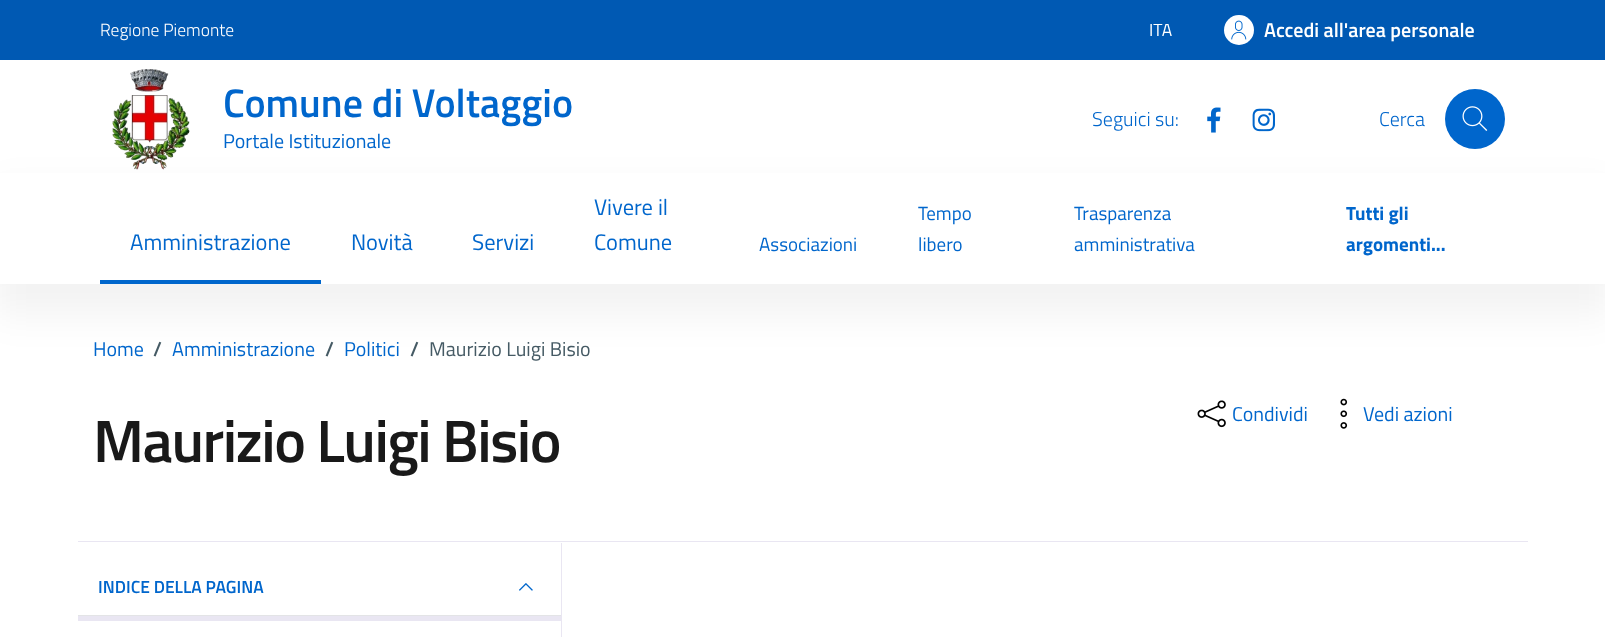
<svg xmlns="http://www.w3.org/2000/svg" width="1605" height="637">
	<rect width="100%" height="100%" fill="#FFFFFF" />
	<rect x="0" y="0" width="1605" height="60" fill="#0059B3" />
	<text x="100" y="36" font-family="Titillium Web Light" font-size="17.5" font-weight="300" fill="#FFFFFF">Regione Piemonte</text>
	<text x="1149" y="36" font-family="Titillium Web" font-size="17.5" fill="#FFFFFF">ITA</text>
	<circle cx="1239" cy="30" r="15" fill="#FFFFFF" />
	<image x="1231" y="20" width="16" height="20" href="assets/img1.png" />
	<text x="1264" y="37" font-family="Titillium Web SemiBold" font-size="20" font-weight="600" fill="#FFFFFF">Accedi all'area personale</text>
	<image x="112" y="69" width="78" height="101" href="assets/img2.png" />
	<text x="223" y="117" font-family="Titillium Web SemiBold" font-size="40" font-weight="600" fill="#0066CC">Comune di Voltaggio</text>
	<text x="223" y="148" font-family="Titillium Web" font-size="20" fill="#0066CC">Portale Istituzionale</text>
	<text x="1092" y="126" font-family="Titillium Web Light" font-size="20" font-weight="300" fill="#0066CC">Seguici su:</text>
	<image x="1207" y="107" width="14" height="26" href="assets/img3.png" />
	<image x="1252" y="108" width="23" height="24" href="assets/img4.png" />
	<text x="1379" y="126" font-family="Titillium Web Light" font-size="20" font-weight="300" fill="#0066CC">Cerca</text>
	<circle cx="1475" cy="119" r="30" fill="#0066CC" />
	<image x="1462" y="106" width="26" height="25" href="assets/img5.png" />
	<rect x="-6" y="189" width="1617" height="126" fill="#000000" fill-opacity="0.05" filter="blur(19px)" />
	<rect x="0" y="173" width="1605" height="111" fill="#FFFFFF" />
	<rect x="100" y="280" width="221" height="4" fill="#0066CC" />
	<g font-family="Titillium Web" font-size="22.5" fill="#0066CC">
		<text x="130" y="250">Amministrazione</text>
		<text x="351" y="250">Novità</text>
		<text x="472" y="250">Servizi</text>
		<text x="594" y="215">Vivere il</text>
		<text x="594" y="250">Comune</text>
	</g>
	<g font-family="Titillium Web" font-size="19" fill="#0066CC">
		<text x="759" y="251">Associazioni</text>
		<text x="918" y="220">Tempo</text>
		<text x="918" y="251">libero</text>
		<text x="1074" y="220">Trasparenza</text>
		<text x="1074" y="251">amministrativa</text>
	</g>
	<g font-family="Titillium Web" font-size="19" font-weight="700" fill="#0066CC">
		<text x="1346" y="220">Tutti gli</text>
		<text x="1346" y="251">argomenti...</text>
	</g>
	<text x="93" y="356" font-family="Titillium Web" font-size="20" fill="#0066CC">Home</text>
	<text x="153" y="356" font-family="Titillium Web SemiBold" font-size="20" font-weight="600" fill="#455A64">/</text>
	<text x="172" y="356" font-family="Titillium Web" font-size="20" fill="#0066CC">Amministrazione</text>
	<text x="325" y="356" font-family="Titillium Web SemiBold" font-size="20" font-weight="600" fill="#455A64">/</text>
	<text x="344" y="356" font-family="Titillium Web" font-size="20" fill="#0066CC">Politici</text>
	<text x="410" y="356" font-family="Titillium Web SemiBold" font-size="20" font-weight="600" fill="#455A64">/</text>
	<text x="429" y="356" font-family="Titillium Web" font-size="20" fill="#455A64">Maurizio Luigi Bisio</text>
	<image x="1197" y="400" width="29" height="28" href="assets/img6.png" />
	<text x="1232" y="421" font-family="Titillium Web" font-size="20" fill="#0066CC">Condividi</text>
	<image x="1340" y="398" width="8" height="31" href="assets/img7.png" />
	<text x="1363" y="421" font-family="Titillium Web" font-size="20" fill="#0066CC">Vedi azioni</text>
	<text x="93" y="462" font-family="Titillium Web SemiBold" font-size="60" font-weight="600" letter-spacing="-1.5" fill="#191919">Maurizio Luigi Bisio</text>
	<rect x="78" y="541" width="1450" height="1" fill="#E9E6F2" />
	<rect x="78" y="615" width="483" height="1" fill="#E3E4E6" />
	<text x="98" y="593" font-family="Titillium Web SemiBold" font-size="17.5" font-weight="600" fill="#0066CC">INDICE DELLA PAGINA</text>
	<image x="519" y="583" width="14" height="8" href="assets/img8.png" />
	<rect x="78" y="616" width="483" height="5" fill="#E9E6F2" />
	<rect x="561" y="543" width="1" height="94" fill="#E9E6F2" />
</svg>
